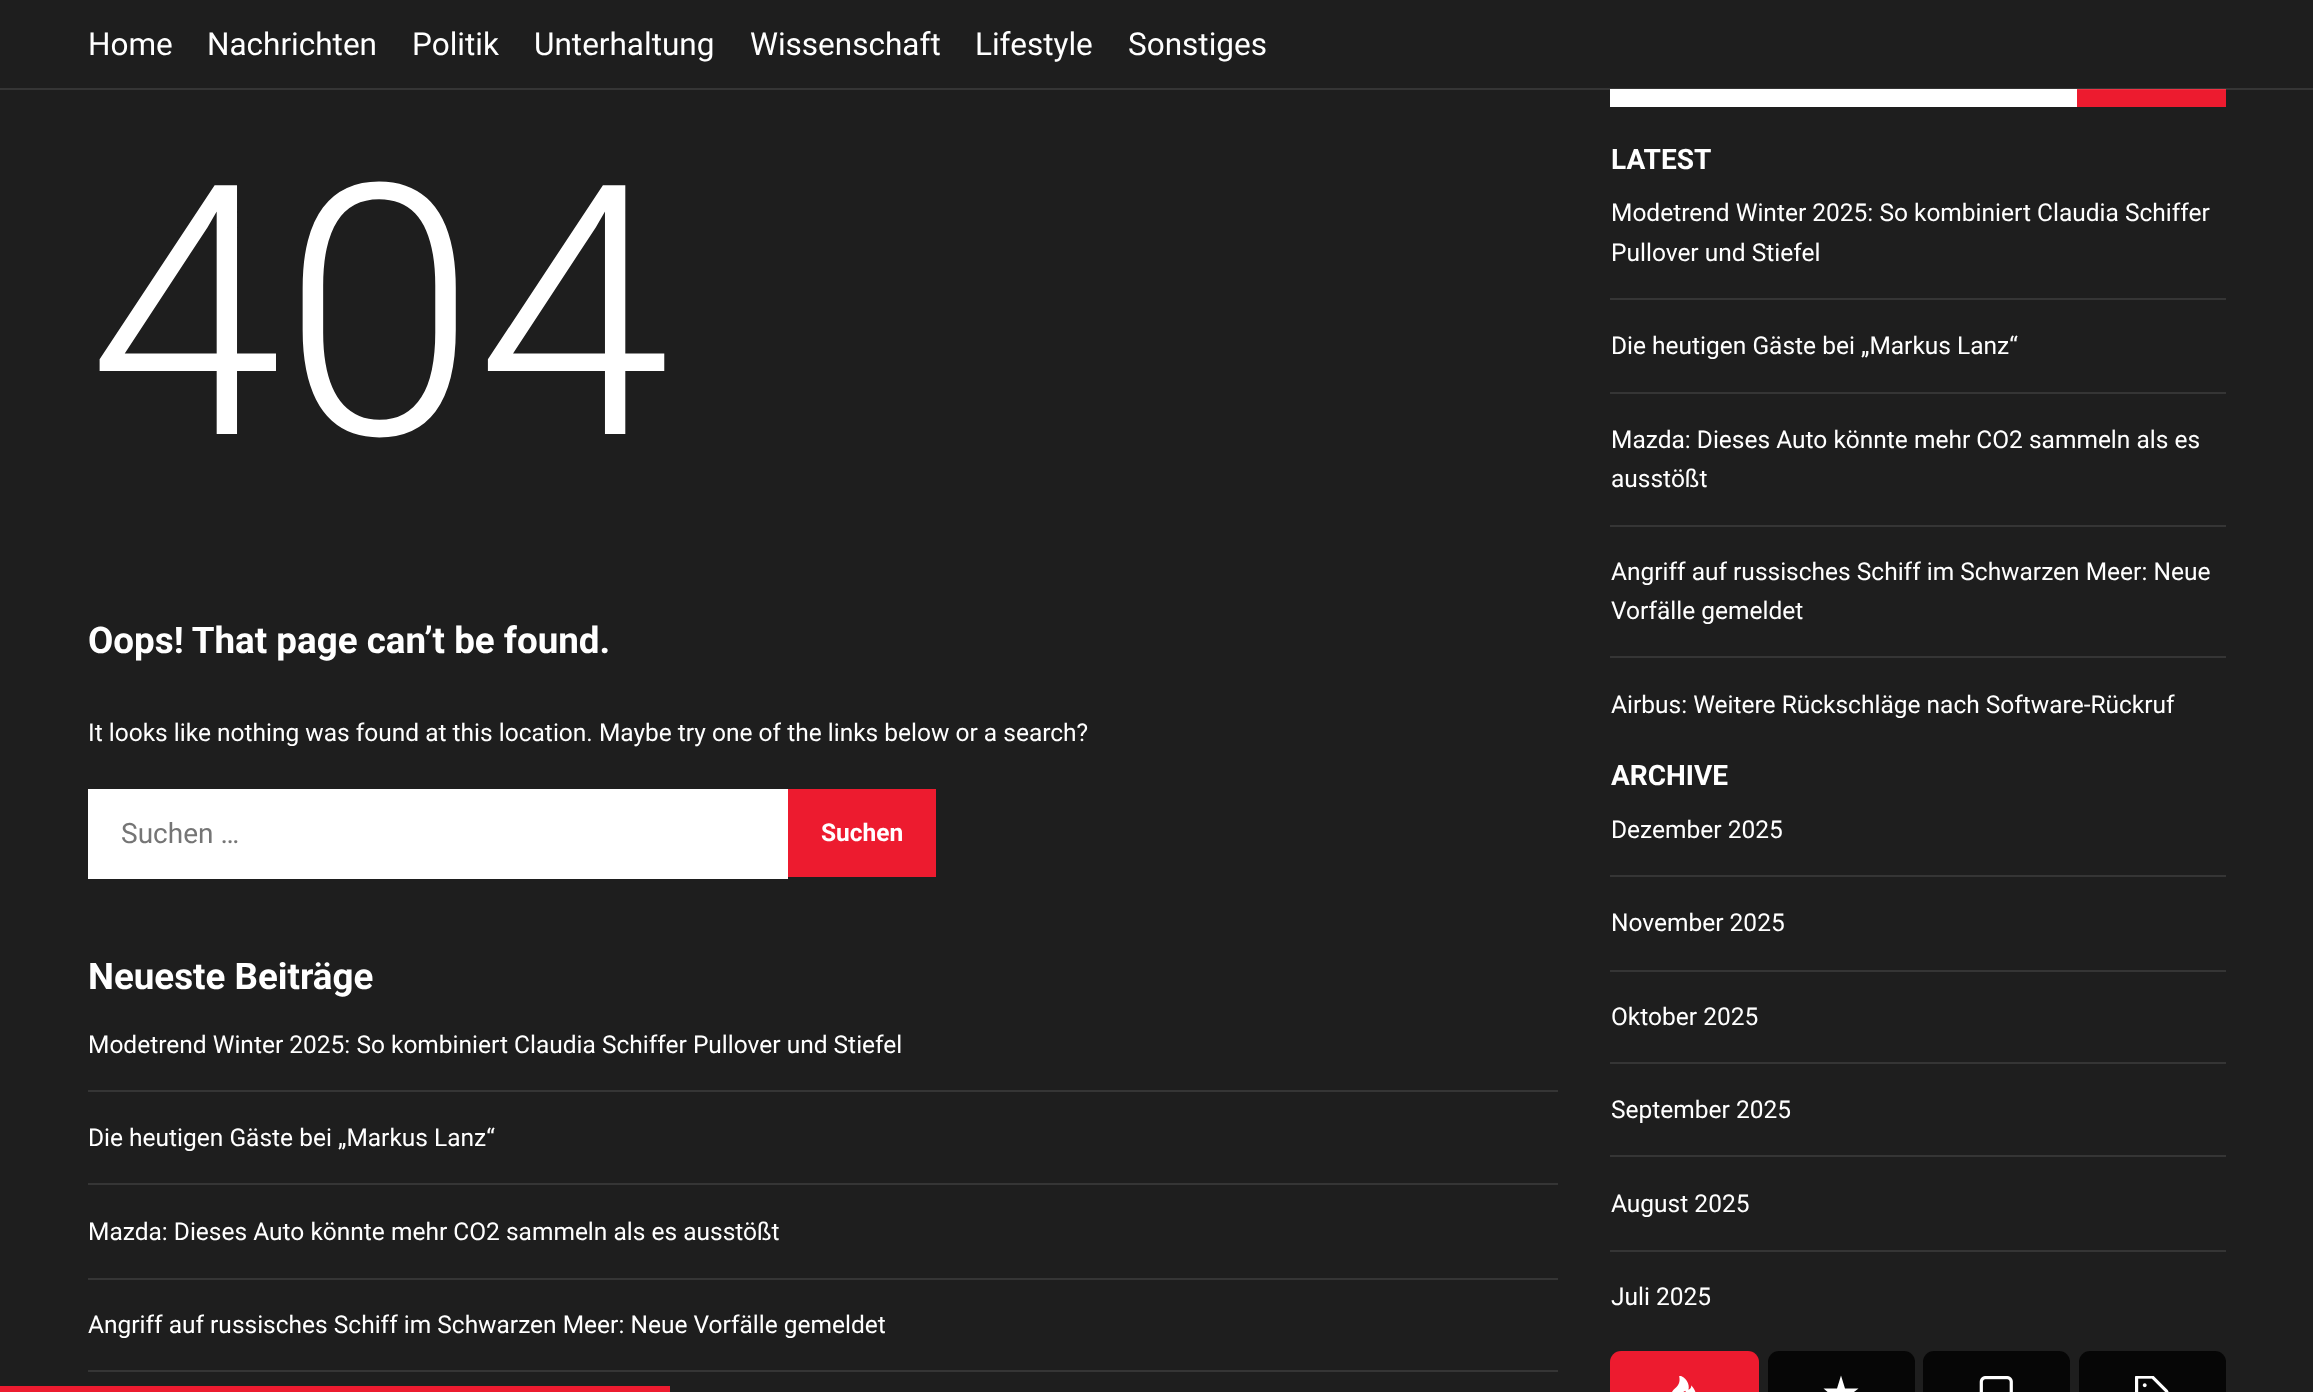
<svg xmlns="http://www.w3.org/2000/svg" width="2313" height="1392">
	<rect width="100%" height="100%" fill="#1E1E1E" />
	<rect x="0" y="88" width="2313" height="2" fill="#353535" />
	<g font-family="Roboto" font-size="31.5" fill="#FFFFFF">
		<text x="88" y="55">Home</text>
		<text x="207" y="55">Nachrichten</text>
		<text x="412" y="55">Politik</text>
		<text x="534" y="55">Unterhaltung</text>
		<text x="750" y="55">Wissenschaft</text>
		<text x="975" y="55">Lifestyle</text>
		<text x="1128" y="55">Sonstiges</text>
	</g>
	<text x="88" y="434" font-family="Roboto" font-size="350" font-weight="300" fill="#FFFFFF">404</text>
	<text x="88" y="653" font-family="Roboto" font-size="36.75" font-weight="700" fill="#FFFFFF">Oops! That page can’t be found.</text>
	<text x="88" y="741" font-family="Roboto" font-size="24.5" fill="#FFFFFF">It looks like nothing was found at this location. Maybe try one of the links below or a search?</text>
	<rect x="88" y="789" width="700" height="90" fill="#FFFFFF" />
	<text x="121" y="843" font-family="Roboto" font-size="28" fill="#757575">Suchen …</text>
	<rect x="788" y="789" width="148" height="88" fill="#ED1B2F" />
	<text x="821" y="841" font-family="Roboto" font-size="24.5" font-weight="700" fill="#FFFFFF">Suchen</text>
	<text x="88" y="989" font-family="Roboto" font-size="36.75" font-weight="700" fill="#FFFFFF">Neueste Beiträge</text>
	<rect x="88" y="1090" width="1470" height="2" fill="#353535" />
	<text x="88" y="1053" font-family="Roboto" font-size="24.5" fill="#FFFFFF">Modetrend Winter 2025: So kombiniert Claudia Schiffer Pullover und Stiefel</text>
	<rect x="88" y="1183" width="1470" height="2" fill="#353535" />
	<text x="88" y="1146" font-family="Roboto" font-size="24.5" fill="#FFFFFF">Die heutigen Gäste bei „Markus Lanz“</text>
	<rect x="88" y="1278" width="1470" height="2" fill="#353535" />
	<text x="88" y="1240" font-family="Roboto" font-size="24.5" fill="#FFFFFF">Mazda: Dieses Auto könnte mehr CO2 sammeln als es ausstößt</text>
	<rect x="88" y="1370" width="1470" height="2" fill="#353535" />
	<text x="88" y="1333" font-family="Roboto" font-size="24.5" fill="#FFFFFF">Angriff auf russisches Schiff im Schwarzen Meer: Neue Vorfälle gemeldet</text>
	<rect x="1610" y="89" width="467" height="18" fill="#FFFFFF" />
	<rect x="2077" y="90" width="149" height="17" fill="#ED1B2F" />
	<rect x="2077" y="89" width="149" height="1" fill="#EF3244" />
	<text x="1611" y="169" font-family="Roboto" font-size="28" font-weight="700" fill="#FFFFFF">LATEST</text>
	<rect x="1610" y="298" width="616" height="2" fill="#353535" />
	<g font-family="Roboto" font-size="24.5" fill="#FFFFFF">
		<text x="1611" y="221">Modetrend Winter 2025: So kombiniert Claudia Schiffer</text>
		<text x="1611" y="261">Pullover und Stiefel</text>
	</g>
	<rect x="1610" y="392" width="616" height="2" fill="#353535" />
	<text x="1611" y="354" font-family="Roboto" font-size="24.5" fill="#FFFFFF">Die heutigen Gäste bei „Markus Lanz“</text>
	<rect x="1610" y="525" width="616" height="2" fill="#353535" />
	<g font-family="Roboto" font-size="24.5" fill="#FFFFFF">
		<text x="1611" y="448">Mazda: Dieses Auto könnte mehr CO2 sammeln als es</text>
		<text x="1611" y="487">ausstößt</text>
	</g>
	<rect x="1610" y="656" width="616" height="2" fill="#353535" />
	<g font-family="Roboto" font-size="24.5" fill="#FFFFFF">
		<text x="1611" y="580">Angriff auf russisches Schiff im Schwarzen Meer: Neue</text>
		<text x="1611" y="619">Vorfälle gemeldet</text>
		<text x="1611" y="713">Airbus: Weitere Rückschläge nach Software-Rückruf</text>
	</g>
	<text x="1611" y="785" font-family="Roboto" font-size="28" font-weight="700" fill="#FFFFFF">ARCHIVE</text>
	<rect x="1610" y="875" width="616" height="2" fill="#353535" />
	<text x="1611" y="838" font-family="Roboto" font-size="24.5" fill="#FFFFFF">Dezember 2025</text>
	<rect x="1610" y="970" width="616" height="2" fill="#353535" />
	<text x="1611" y="931" font-family="Roboto" font-size="24.5" fill="#FFFFFF">November 2025</text>
	<rect x="1610" y="1062" width="616" height="2" fill="#353535" />
	<text x="1611" y="1025" font-family="Roboto" font-size="24.5" fill="#FFFFFF">Oktober 2025</text>
	<rect x="1610" y="1155" width="616" height="2" fill="#353535" />
	<text x="1611" y="1118" font-family="Roboto" font-size="24.5" fill="#FFFFFF">September 2025</text>
	<rect x="1610" y="1250" width="616" height="2" fill="#353535" />
	<g font-family="Roboto" font-size="24.5" fill="#FFFFFF">
		<text x="1611" y="1212">August 2025</text>
		<text x="1611" y="1305">Juli 2025</text>
	</g>
	<rect x="1610" y="1351" width="149" height="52" rx="11" fill="#ED1B2F" />
	<image x="1672" y="1376" width="24" height="16" href="assets/img1.png" />
	<rect x="1768" y="1351" width="147" height="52" rx="11" fill="#060606" />
	<path d="M1858.5 1388.5L1830 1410.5L1834 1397.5L1823.5 1388.5H1837L1841 1375.5L1845 1388.5ZM1852.5 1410.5L1843 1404L1848.5 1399.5Z" fill="#FFFFFF" />
	<rect x="1923" y="1351" width="147" height="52" rx="11" fill="#060606" />
	<image x="1979" y="1376" width="34" height="16" href="assets/img2.png" />
	<rect x="2079" y="1351" width="147" height="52" rx="11" fill="#060606" />
	<image x="2135" y="1376" width="34" height="16" href="assets/img3.png" />
	<rect x="0" y="1386" width="670" height="6" fill="#ED1B2F" />
</svg>
